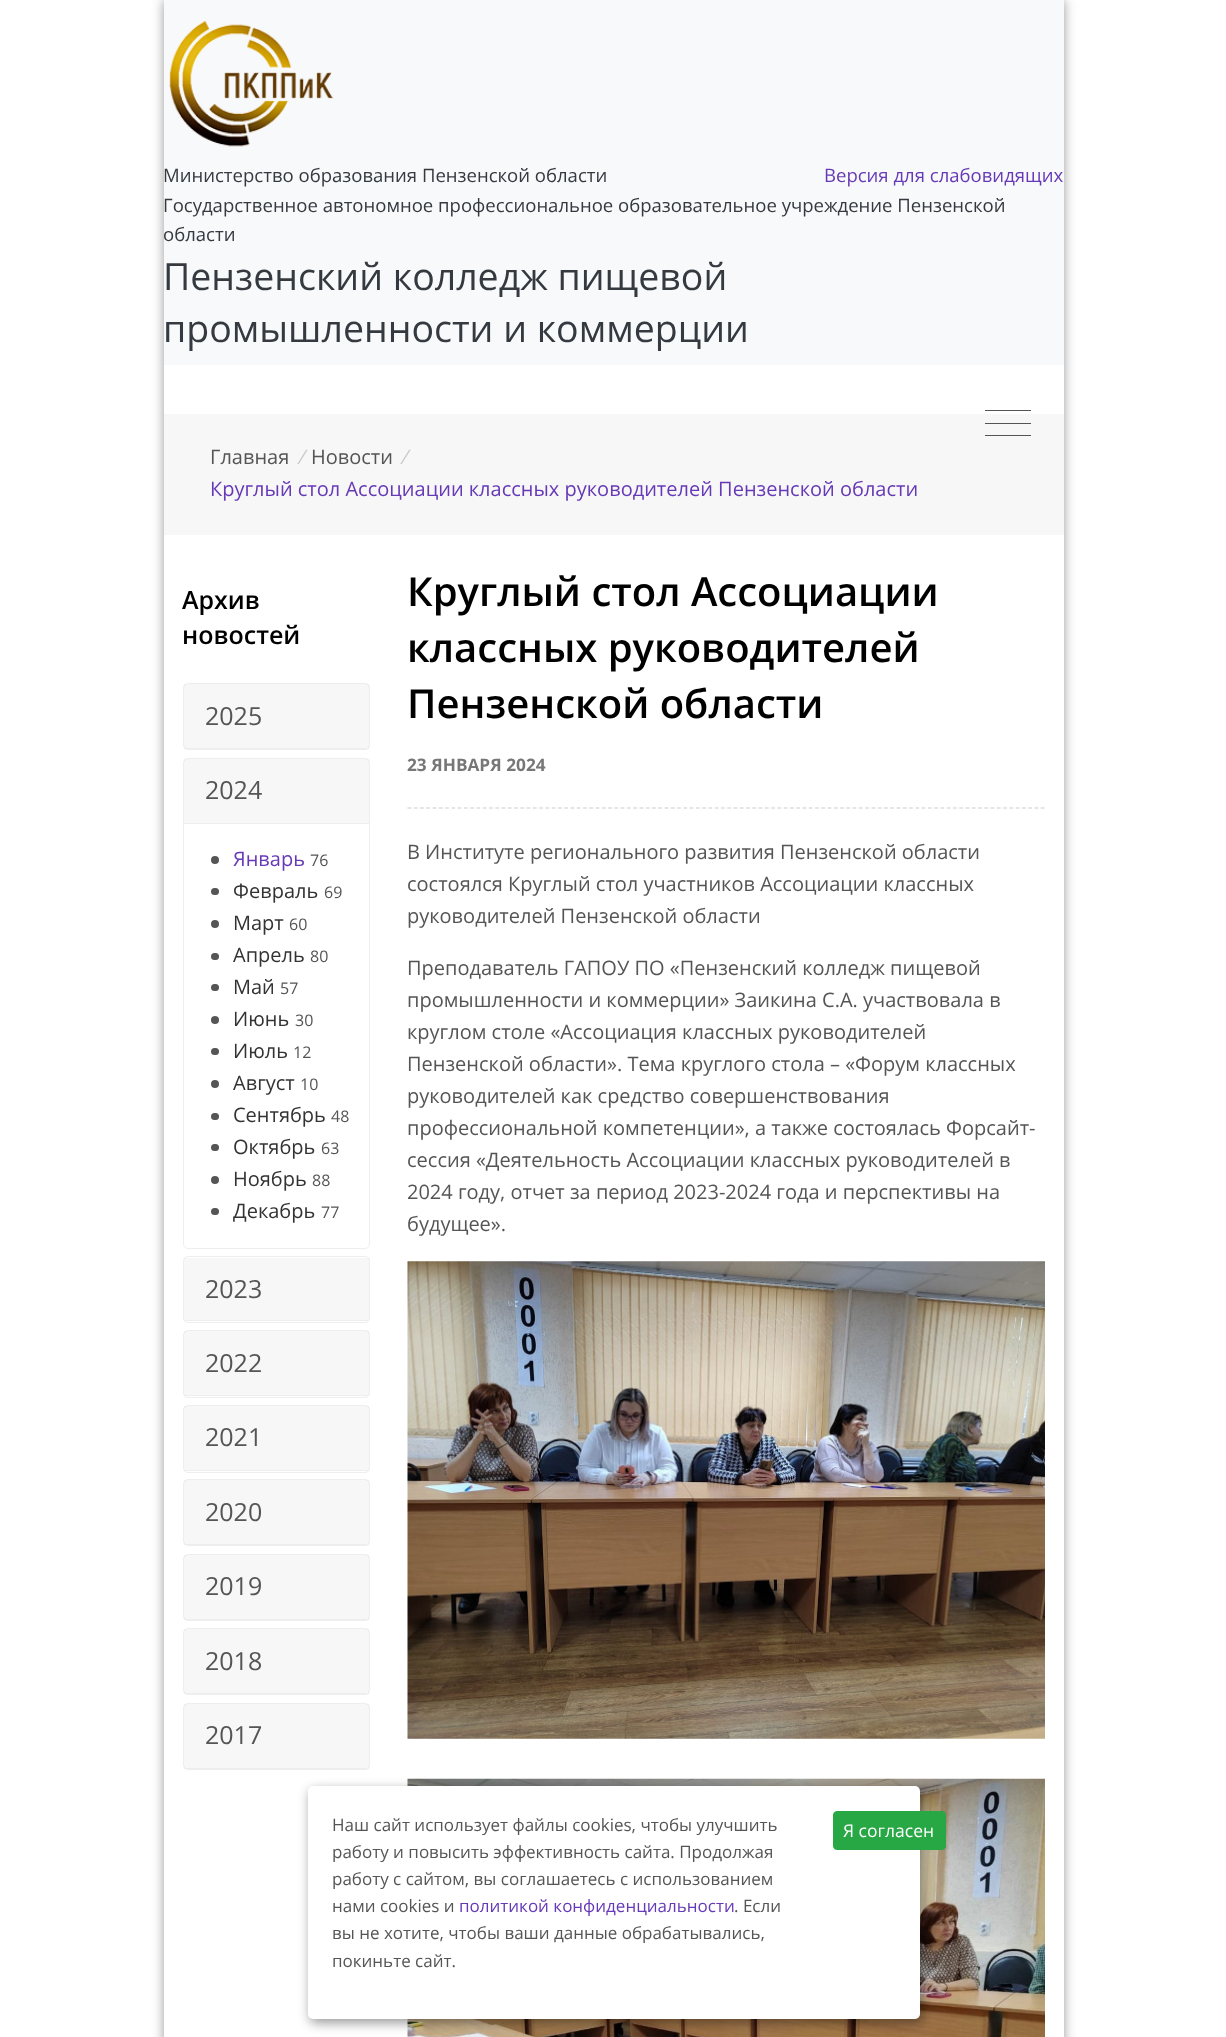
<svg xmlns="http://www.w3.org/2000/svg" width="1226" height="2037">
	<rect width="100%" height="100%" fill="#FFFFFF" />
	<rect x="164" y="0" width="900" height="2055" fill="#999999" filter="blur(6px)" />
	<rect x="164" y="365" width="900" height="1672" fill="#FFFFFF" />
	<rect x="164" y="0" width="900" height="365" fill="#F8F9FA" />
	<image x="169" y="20" width="165" height="127" href="assets/img1.png" />
	<text x="163" y="182" font-family="Open Sans" font-size="18.55" fill="#343A40">Министерство образования Пензенской области</text>
	<text x="824" y="182" font-family="Open Sans" font-size="18.55" fill="#6639B6">Версия для слабовидящих</text>
	<g font-family="Open Sans" font-size="18.55" fill="#343A40">
		<text x="163" y="212">Государственное автономное профессиональное образовательное учреждение Пензенской</text>
		<text x="163" y="241">области</text>
	</g>
	<g font-family="Open Sans" font-size="37.5" fill="#343A40">
		<text x="163" y="290">Пензенский колледж пищевой</text>
		<text x="163" y="342">промышленности и коммерции</text>
	</g>
	<rect x="985" y="410" width="46" height="1" fill="#555555" />
	<rect x="164" y="414" width="900" height="121" fill="#F7F7F7" />
	<rect x="985" y="423" width="46" height="1" fill="#555555" />
	<rect x="985" y="435" width="46" height="1" fill="#555555" />
	<text x="210" y="464" font-family="Open Sans" font-size="20" fill="#555555">Главная</text>
	<text x="297" y="464" font-family="Open Sans" font-size="20" font-style="italic" fill="#CCCCCC">/</text>
	<text x="311" y="464" font-family="Open Sans" font-size="20" fill="#555555">Новости</text>
	<text x="400" y="464" font-family="Open Sans" font-size="20" font-style="italic" fill="#CCCCCC">/</text>
	<text x="210" y="496" font-family="Open Sans" font-size="20" fill="#6639B6">Круглый стол Ассоциации классных руководителей Пензенской области</text>
	<g font-family="Open Sans" font-size="25" font-weight="600" fill="#000000">
		<text x="182" y="609">Архив</text>
		<text x="182" y="644">новостей</text>
	</g>
	<rect x="183.5" y="683.5" width="186" height="66" rx="4.5" fill="none" stroke="#EEEEEE" />
	<rect x="184" y="684" width="185" height="64" fill="#000000" fill-opacity="0.03" />
	<rect x="184" y="748" width="185" height="1" fill="#EEEEEE" />
	<text x="205" y="725" font-family="Open Sans" font-size="25" fill="#555555">2025</text>
	<rect x="183.5" y="758.5" width="186" height="490" rx="4.5" fill="none" stroke="#EEEEEE" />
	<rect x="184" y="759" width="185" height="64" fill="#000000" fill-opacity="0.03" />
	<rect x="184" y="823" width="185" height="1" fill="#EEEEEE" />
	<text x="205" y="799" font-family="Open Sans" font-size="25" fill="#555555">2024</text>
	<circle cx="215" cy="860" r="4" fill="#555555" />
	<text x="233" y="866" font-family="Open Sans" font-size="20" fill="#6639B6">Январь</text>
	<text x="310" y="866" font-family="Open Sans" font-size="16" fill="#555555">76</text>
	<rect x="211" y="888" width="8" height="7" rx="3.5" fill="#555555" />
	<text x="233" y="898" font-family="Open Sans" font-size="20" fill="#333333">Февраль</text>
	<text x="324" y="898" font-family="Open Sans" font-size="16" fill="#555555">69</text>
	<circle cx="215" cy="924" r="4" fill="#555555" />
	<text x="233" y="930" font-family="Open Sans" font-size="20" fill="#333333">Март</text>
	<text x="289" y="930" font-family="Open Sans" font-size="16" fill="#555555">60</text>
	<rect x="211" y="953" width="8" height="7" rx="3.5" fill="#555555" />
	<text x="233" y="962" font-family="Open Sans" font-size="20" fill="#333333">Апрель</text>
	<text x="310" y="962" font-family="Open Sans" font-size="16" fill="#555555">80</text>
	<rect x="211" y="984" width="8" height="7" rx="3.5" fill="#555555" />
	<text x="233" y="994" font-family="Open Sans" font-size="20" fill="#333333">Май</text>
	<text x="280" y="994" font-family="Open Sans" font-size="16" fill="#555555">57</text>
	<circle cx="215" cy="1020" r="4" fill="#555555" />
	<text x="233" y="1026" font-family="Open Sans" font-size="20" fill="#333333">Июнь</text>
	<text x="295" y="1026" font-family="Open Sans" font-size="16" fill="#555555">30</text>
	<rect x="211" y="1048" width="8" height="7" rx="3.5" fill="#555555" />
	<text x="233" y="1058" font-family="Open Sans" font-size="20" fill="#333333">Июль</text>
	<text x="293" y="1058" font-family="Open Sans" font-size="16" fill="#555555">12</text>
	<circle cx="215" cy="1084" r="4" fill="#555555" />
	<text x="233" y="1090" font-family="Open Sans" font-size="20" fill="#333333">Август</text>
	<text x="300" y="1090" font-family="Open Sans" font-size="16" fill="#555555">10</text>
	<rect x="211" y="1113" width="8" height="7" rx="3.5" fill="#555555" />
	<text x="233" y="1122" font-family="Open Sans" font-size="20" fill="#333333">Сентябрь</text>
	<text x="331" y="1122" font-family="Open Sans" font-size="16" fill="#555555">48</text>
	<rect x="211" y="1144" width="8" height="7" rx="3.5" fill="#555555" />
	<text x="233" y="1154" font-family="Open Sans" font-size="20" fill="#333333">Октябрь</text>
	<text x="321" y="1154" font-family="Open Sans" font-size="16" fill="#555555">63</text>
	<circle cx="215" cy="1180" r="4" fill="#555555" />
	<text x="233" y="1186" font-family="Open Sans" font-size="20" fill="#333333">Ноябрь</text>
	<text x="312" y="1186" font-family="Open Sans" font-size="16" fill="#555555">88</text>
	<rect x="211" y="1208" width="8" height="7" rx="3.5" fill="#555555" />
	<text x="233" y="1218" font-family="Open Sans" font-size="20" fill="#333333">Декабрь</text>
	<text x="321" y="1218" font-family="Open Sans" font-size="16" fill="#555555">77</text>
	<rect x="183.5" y="1256.5" width="186" height="66" rx="4.5" fill="none" stroke="#EEEEEE" />
	<rect x="184" y="1258" width="185" height="62" fill="#000000" fill-opacity="0.03" />
	<rect x="184" y="1320" width="185" height="1" fill="#EEEEEE" />
	<text x="205" y="1298" font-family="Open Sans" font-size="25" fill="#555555">2023</text>
	<rect x="183.5" y="1330.5" width="186" height="67" rx="4.5" fill="none" stroke="#EEEEEE" />
	<rect x="184" y="1331" width="185" height="64" fill="#000000" fill-opacity="0.03" />
	<rect x="184" y="1395" width="185" height="1" fill="#EEEEEE" />
	<text x="205" y="1372" font-family="Open Sans" font-size="25" fill="#555555">2022</text>
	<rect x="183.5" y="1405.5" width="186" height="67" rx="4.5" fill="none" stroke="#EEEEEE" />
	<rect x="184" y="1406" width="185" height="64" fill="#000000" fill-opacity="0.03" />
	<rect x="184" y="1470" width="185" height="1" fill="#EEEEEE" />
	<text x="205" y="1446" font-family="Open Sans" font-size="25" fill="#555555">2021</text>
	<rect x="183.5" y="1479.5" width="186" height="66" rx="4.5" fill="none" stroke="#EEEEEE" />
	<rect x="184" y="1480" width="185" height="64" fill="#000000" fill-opacity="0.03" />
	<rect x="184" y="1544" width="185" height="1" fill="#EEEEEE" />
	<text x="205" y="1521" font-family="Open Sans" font-size="25" fill="#555555">2020</text>
	<rect x="183.5" y="1554.5" width="186" height="66" rx="4.5" fill="none" stroke="#EEEEEE" />
	<rect x="184" y="1555" width="185" height="64" fill="#000000" fill-opacity="0.03" />
	<rect x="184" y="1619" width="185" height="1" fill="#EEEEEE" />
	<text x="205" y="1595" font-family="Open Sans" font-size="25" fill="#555555">2019</text>
	<rect x="183.5" y="1628.5" width="186" height="66" rx="4.5" fill="none" stroke="#EEEEEE" />
	<rect x="184" y="1629" width="185" height="64" fill="#000000" fill-opacity="0.03" />
	<rect x="184" y="1693" width="185" height="1" fill="#EEEEEE" />
	<text x="205" y="1670" font-family="Open Sans" font-size="25" fill="#555555">2018</text>
	<rect x="183.5" y="1703.5" width="186" height="66" rx="4.5" fill="none" stroke="#EEEEEE" />
	<rect x="184" y="1704" width="185" height="64" fill="#000000" fill-opacity="0.03" />
	<rect x="184" y="1768" width="185" height="1" fill="#EEEEEE" />
	<text x="205" y="1744" font-family="Open Sans" font-size="25" fill="#555555">2017</text>
	<g font-family="Open Sans" font-size="40" font-weight="600" fill="#000000">
		<text x="407" y="606">Круглый стол Ассоциации</text>
		<text x="407" y="662">классных руководителей</text>
		<text x="407" y="718">Пензенской области</text>
	</g>
	<text x="407" y="771" font-family="Open Sans" font-size="17.25" font-weight="700" fill="#777777">23 ЯНВАРЯ 2024</text>
	<path d="M407.5 808H1045" fill="none" stroke="#CCCCCC" stroke-width="1.2" stroke-dasharray="3.75 2.52" />
	<g font-family="Open Sans" font-size="20" fill="#555555">
		<text x="407" y="859">В Институте регионального развития Пензенской области</text>
		<text x="407" y="891">состоялся Круглый стол участников Ассоциации классных</text>
		<text x="407" y="923">руководителей Пензенской области</text>
		<text x="407" y="975">Преподаватель ГАПОУ ПО «Пензенский колледж пищевой</text>
		<text x="407" y="1007">промышленности и коммерции» Заикина С.А. участвовала в</text>
		<text x="407" y="1039">круглом столе «Ассоциация классных руководителей</text>
		<text x="407" y="1071">Пензенской области». Тема круглого стола – «Форум классных</text>
		<text x="407" y="1103">руководителей как средство совершенствования</text>
		<text x="407" y="1135">профессиональной компетенции», а также состоялась Форсайт-</text>
		<text x="407" y="1167">сессия «Деятельность Ассоциации классных руководителей в</text>
		<text x="407" y="1199">2024 году, отчет за период 2023-2024 года и перспективы на</text>
		<text x="407" y="1231">будущее».</text>
	</g>
	<image x="407" y="1261" width="638" height="478" href="assets/img2.png" />
	<image x="407" y="1778" width="638" height="259" href="assets/img3.png" />
	<rect x="310" y="1790" width="613" height="233" rx="5" fill="#000000" fill-opacity="0.4" filter="blur(6px)" />
	<rect x="308" y="1786" width="612" height="233" rx="5" fill="#FFFFFF" />
	<g font-family="Open Sans" font-size="17" fill="#555555">
		<text x="332" y="1831">Наш сайт использует файлы cookies, чтобы улучшить</text>
		<text x="332" y="1858">работу и повысить эффективность сайта. Продолжая</text>
		<text x="332" y="1885">работу с сайтом, вы соглашаетесь с использованием</text>
		<text x="332" y="1912">нами cookies и</text>
	</g>
	<text x="459" y="1912" font-family="Open Sans" font-size="17" fill="#6639B6">политикой конфиденциальности</text>
	<g font-family="Open Sans" font-size="17" fill="#555555">
		<text x="734" y="1912">. Если</text>
		<text x="332" y="1939">вы не хотите, чтобы ваши данные обрабатывались,</text>
		<text x="332" y="1967">покиньте сайт.</text>
	</g>
	<rect x="833.5" y="1811.5" width="112" height="38" rx="3.5" fill="#28A745" stroke="#28A745" />
	<text x="843" y="1837" font-family="Open Sans" font-size="17.5" fill="#FFFFFF">Я согласен</text>
</svg>
